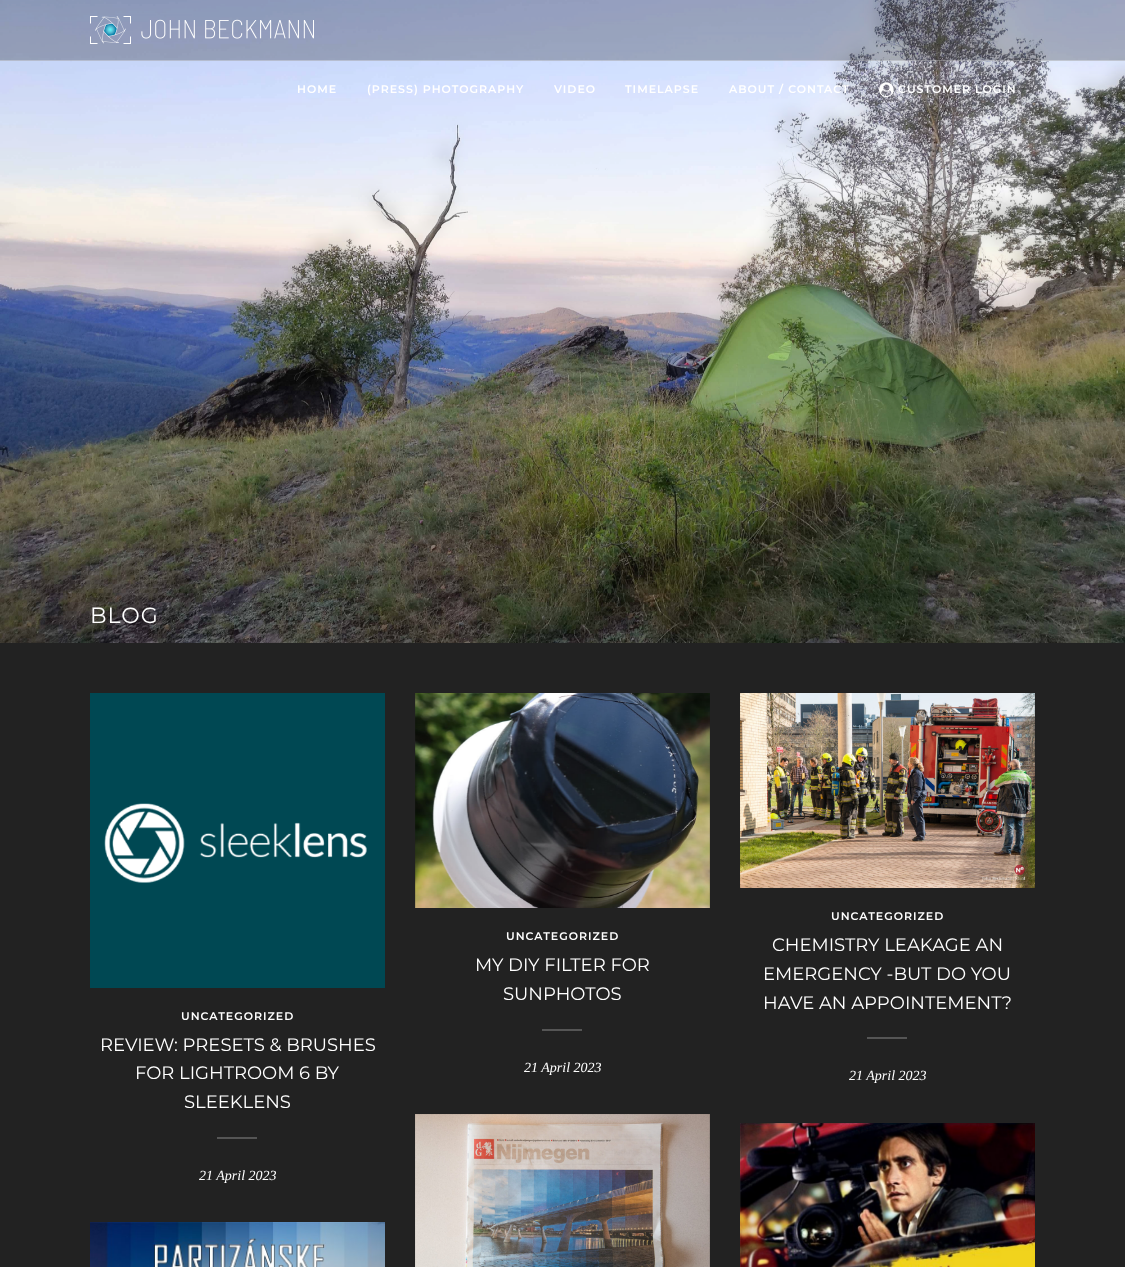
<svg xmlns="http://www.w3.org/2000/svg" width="1125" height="1267">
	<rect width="100%" height="100%" fill="#222222" />
	<image x="0" y="0" width="1125" height="643" href="assets/img3.png" />
	<image x="0" y="0" width="1125" height="643" href="assets/img4.png" />
	<rect x="0" y="0" width="1125" height="61" fill="#000000" fill-opacity="0.25" />
	<rect x="0" y="60" width="1125" height="1" fill="#FFFFFF" fill-opacity="0.3" />
	<image x="90" y="16" width="224" height="28" href="assets/img1.png" />
	<g font-family="Montserrat" font-size="11" font-weight="600" letter-spacing="1" fill="#FFFFFF">
		<text x="297" y="93">HOME</text>
		<text x="367" y="93">(PRESS) PHOTOGRAPHY</text>
		<text x="554" y="93">VIDEO</text>
		<text x="625" y="93">TIMELAPSE</text>
		<text x="729" y="93">ABOUT / CONTACT</text>
	</g>
	<image x="879" y="82" width="15" height="16" href="assets/img2.png" />
	<text x="898" y="93" font-family="Montserrat" font-size="11" font-weight="600" letter-spacing="1" fill="#FFFFFF">CUSTOMER LOGIN</text>
	<text x="90" y="623" font-family="Montserrat" font-size="22" font-weight="100" letter-spacing="1" fill="#FFFFFF">BLOG</text>
	<image x="90" y="693" width="295" height="295" href="assets/img5.png" />
	<text x="181" y="1020" font-family="Montserrat" font-size="11" font-weight="600" letter-spacing="1" fill="#FFFFFF">UNCATEGORIZED</text>
	<g font-family="Montserrat" font-size="18" font-weight="100" fill="#FFFFFF">
		<text x="100" y="1051">REVIEW: PRESETS &amp; BRUSHES</text>
		<text x="135" y="1079">FOR LIGHTROOM 6 BY</text>
		<text x="184" y="1108">SLEEKLENS</text>
	</g>
	<rect x="217" y="1137" width="40" height="2" fill="#555555" />
	<text x="199" y="1180" font-family="Liberation Serif" font-size="14" font-style="italic" fill="#FFFFFF">21 April 2023</text>
	<image x="415" y="693" width="295" height="215" href="assets/img6.png" />
	<text x="506" y="940" font-family="Montserrat" font-size="11" font-weight="600" letter-spacing="1" fill="#FFFFFF">UNCATEGORIZED</text>
	<g font-family="Montserrat" font-size="18" font-weight="100" fill="#FFFFFF">
		<text x="475" y="971">MY DIY FILTER FOR</text>
		<text x="503" y="1000">SUNPHOTOS</text>
	</g>
	<rect x="542" y="1029" width="40" height="2" fill="#555555" />
	<text x="524" y="1072" font-family="Liberation Serif" font-size="14" font-style="italic" fill="#FFFFFF">21 April 2023</text>
	<image x="740" y="693" width="295" height="195" href="assets/img7.png" />
	<text x="831" y="920" font-family="Montserrat" font-size="11" font-weight="600" letter-spacing="1" fill="#FFFFFF">UNCATEGORIZED</text>
	<g font-family="Montserrat" font-size="18" font-weight="100" fill="#FFFFFF">
		<text x="772" y="951">CHEMISTRY LEAKAGE AN</text>
		<text x="763" y="980">EMERGENCY -BUT DO YOU</text>
		<text x="763" y="1009">HAVE AN APPOINTEMENT?</text>
	</g>
	<rect x="867" y="1037" width="40" height="2" fill="#555555" />
	<text x="849" y="1080" font-family="Liberation Serif" font-size="14" font-style="italic" fill="#FFFFFF">21 April 2023</text>
	<image x="90" y="1222" width="295" height="45" href="assets/img8.png" />
	<image x="415" y="1114" width="295" height="153" href="assets/img9.png" />
	<image x="740" y="1123" width="295" height="144" href="assets/img10.png" />
</svg>
